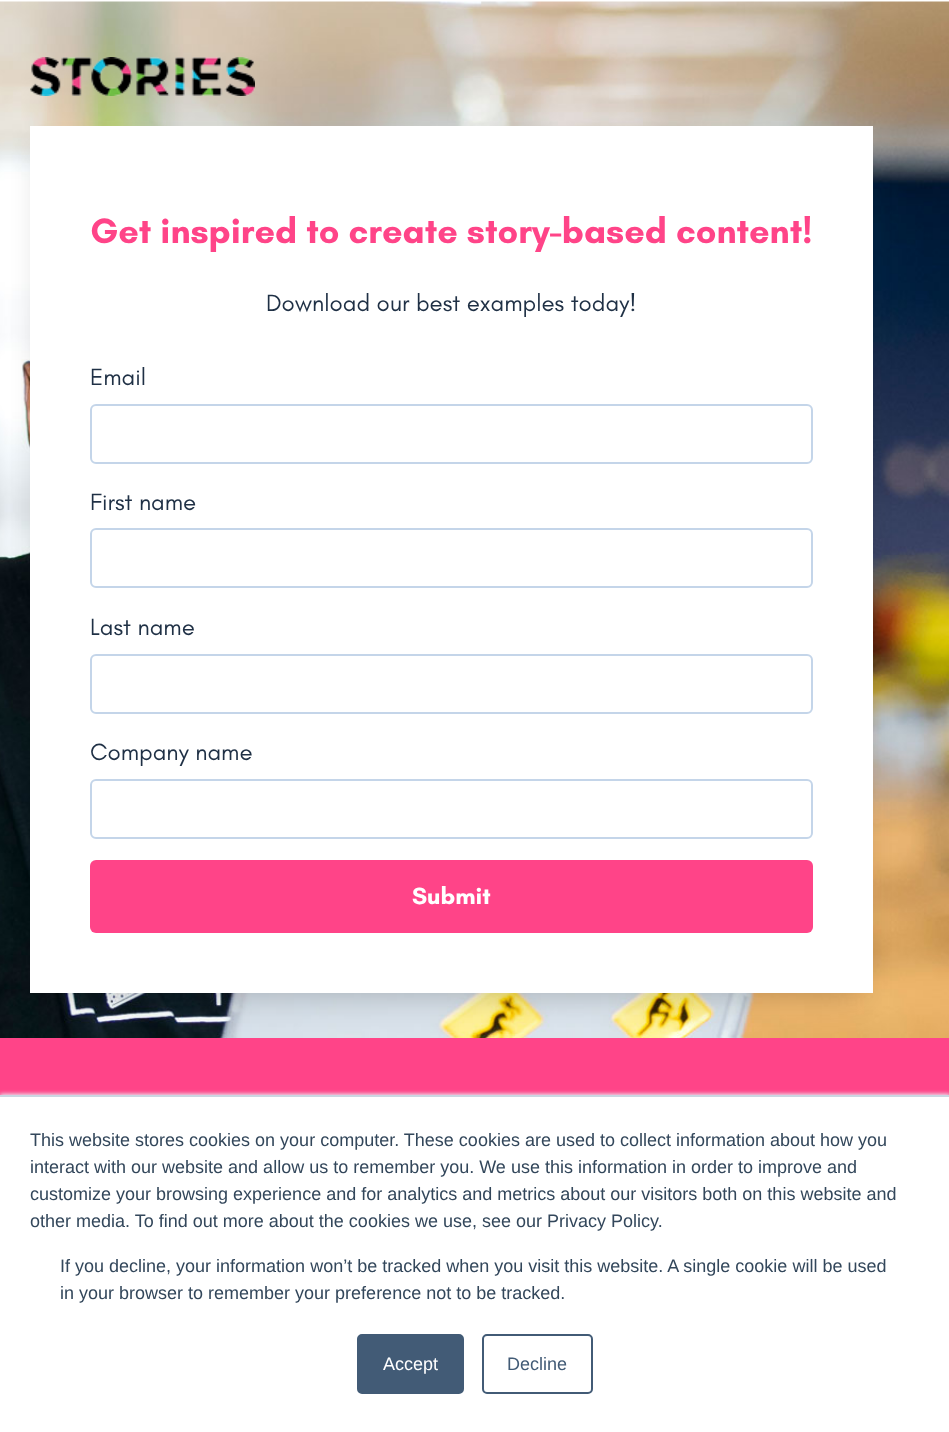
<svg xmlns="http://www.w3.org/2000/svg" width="949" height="1432">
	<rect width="100%" height="100%" fill="#FFFFFF" />
	<image x="0" y="1" width="949" height="1037" href="assets/img1.png" />
	<image x="30" y="57" width="225" height="39" href="assets/img2.png" />
	<rect x="0" y="1038" width="949" height="57" fill="#FF4488" />
	<rect x="42" y="153" width="819" height="843" fill="#000000" fill-opacity="0.2" filter="blur(15px)" />
	<rect x="30" y="126" width="843" height="867" fill="#FFFFFF" />
	<text x="90" y="243" font-family="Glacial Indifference" font-size="36" font-weight="700" fill="#FF4488">Get inspired to create story-based content!</text>
	<g font-family="Glacial Indifference" font-size="24" fill="#1F3045">
		<text x="266" y="311">Download our best examples today!</text>
		<text x="90" y="385">Email</text>
	</g>
	<rect x="91" y="405" width="721" height="58" rx="5" fill="none" stroke="#C4D5E9" stroke-width="2" />
	<text x="90" y="510" font-family="Glacial Indifference" font-size="24" fill="#1F3045">First name</text>
	<rect x="91" y="529" width="721" height="58" rx="5" fill="none" stroke="#C4D5E9" stroke-width="2" />
	<text x="90" y="635" font-family="Glacial Indifference" font-size="24" fill="#1F3045">Last name</text>
	<rect x="91" y="655" width="721" height="58" rx="5" fill="none" stroke="#C4D5E9" stroke-width="2" />
	<text x="90" y="760" font-family="Glacial Indifference" font-size="24" fill="#1F3045">Company name</text>
	<rect x="91" y="780" width="721" height="58" rx="5" fill="none" stroke="#C4D5E9" stroke-width="2" />
	<rect x="90" y="860" width="723" height="73" rx="6" fill="#FF4488" />
	<text x="412" y="904" font-family="Glacial Indifference" font-size="24" font-weight="700" fill="#FFFFFF">Submit</text>
	<rect x="0" y="1094" width="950" height="337" fill="#EAF0F6" filter="blur(2px)" />
	<rect x="0" y="1097" width="949" height="335" fill="#FFFFFF" />
	<rect x="0" y="1095" width="949" height="2" fill="#CBD6E2" />
	<g font-family="Liberation Sans" font-size="18" fill="#33475B">
		<text x="30" y="1146">This website stores cookies on your computer. These cookies are used to collect information about how you</text>
		<text x="30" y="1173">interact with our website and allow us to remember you. We use this information in order to improve and</text>
		<text x="30" y="1200">customize your browsing experience and for analytics and metrics about our visitors both on this website and</text>
		<text x="30" y="1227">other media. To find out more about the cookies we use, see our Privacy Policy.</text>
		<text x="60" y="1272">If you decline, your information won’t be tracked when you visit this website. A single cookie will be used</text>
		<text x="60" y="1299">in your browser to remember your preference not to be tracked.</text>
	</g>
	<rect x="358" y="1335" width="105" height="58" rx="4" fill="#425B76" stroke="#425B76" stroke-width="2" />
	<text x="383" y="1370" font-family="Liberation Sans" font-size="18" fill="#FFFFFF">Accept</text>
	<rect x="483" y="1335" width="109" height="58" rx="4" fill="none" stroke="#425B76" stroke-width="2" />
	<text x="507" y="1370" font-family="Liberation Sans" font-size="18" fill="#425B76">Decline</text>
</svg>
